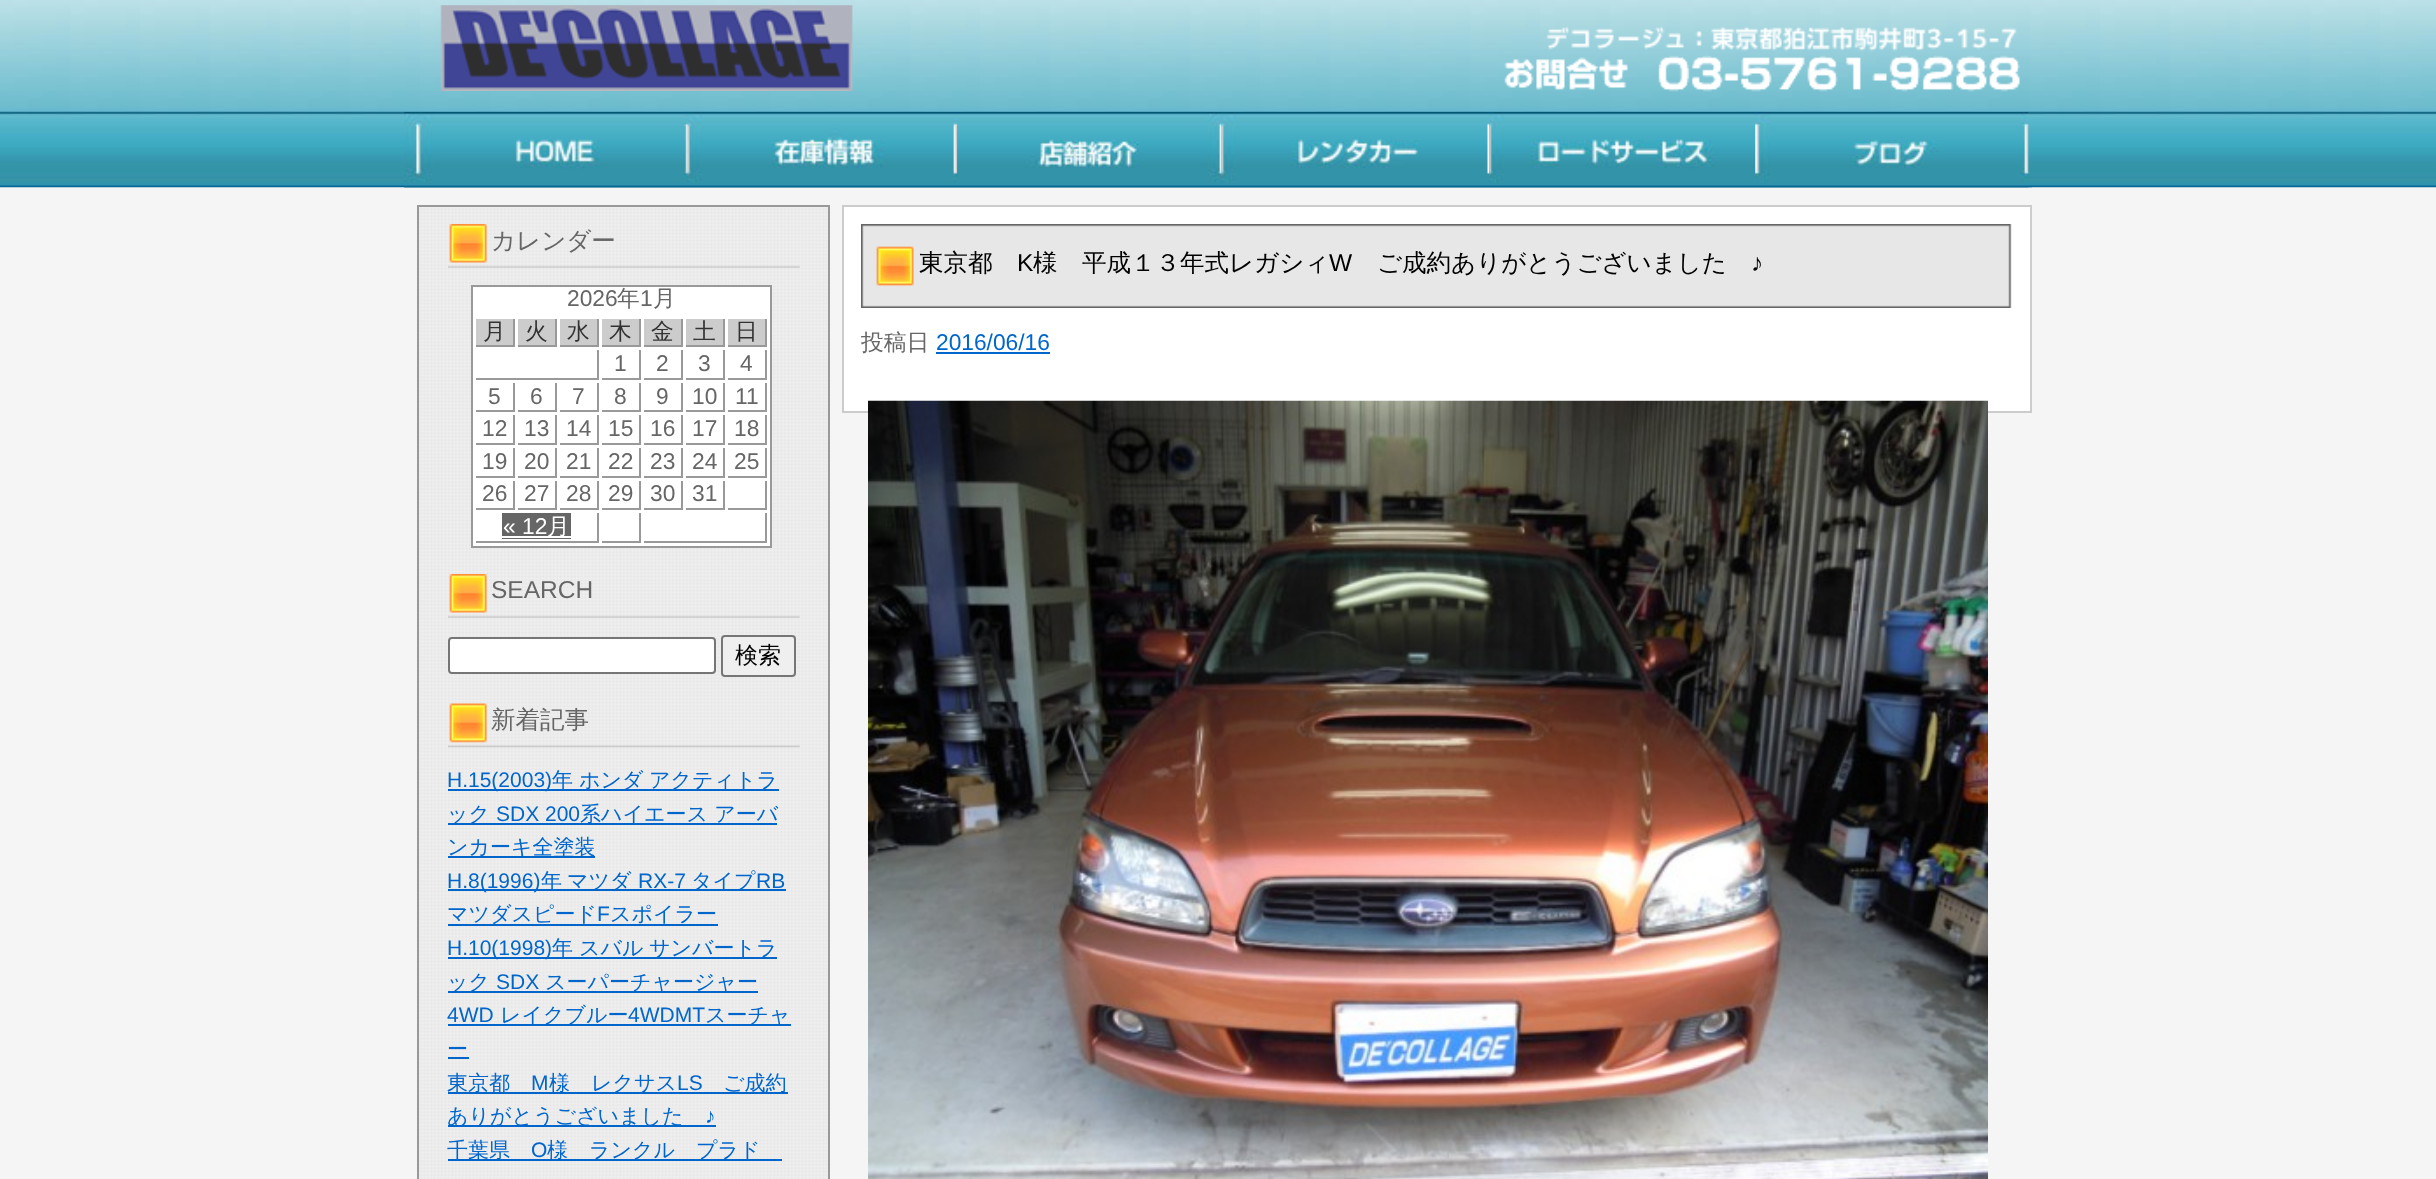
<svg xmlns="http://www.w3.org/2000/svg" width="2436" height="1179">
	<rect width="100%" height="100%" fill="#F5F5F5" />
	<image x="0" y="0" width="2436" height="188" href="assets/img1.png" />
	<image x="404" y="187" width="1628" height="1" href="assets/img2.png" />
	<image x="440" y="5" width="413" height="86" href="assets/img3.png" />
	<image x="1504" y="26" width="516" height="66" href="assets/img4.png" />
	<image x="404" y="112" width="284" height="76" href="assets/img5.png" />
	<image x="687" y="112" width="271" height="76" href="assets/img6.png" />
	<image x="957" y="112" width="265" height="76" href="assets/img7.png" />
	<image x="1221" y="112" width="269" height="76" href="assets/img8.png" />
	<image x="1489" y="112" width="267" height="76" href="assets/img9.png" />
	<image x="1755" y="112" width="274" height="76" href="assets/img10.png" />
	<image x="419" y="207" width="409" height="972" href="assets/img11.png" />
	<rect x="418" y="206" width="411" height="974" fill="none" stroke="#999999" stroke-width="2" />
	<image x="448" y="224" width="352" height="44" href="assets/img12.png" />
	<text x="491" y="249" font-family="WenQuanYi Zen Hei" font-size="24.5" font-weight="500" fill="#666666">カレンダー</text>
	<rect x="472" y="286" width="299" height="261" fill="#FFFFFF" stroke="#999999" stroke-width="2" />
	<text x="567" y="306" font-family="Liberation Sans" font-size="22.75" fill="#666666">2026</text>
	<text x="617" y="306" font-family="WenQuanYi Zen Hei" font-size="22.75" font-weight="500" fill="#666666">年</text>
	<text x="640" y="306" font-family="Liberation Sans" font-size="22.75" fill="#666666">1</text>
	<text x="653" y="306" font-family="WenQuanYi Zen Hei" font-size="22.75" font-weight="500" fill="#666666">月</text>
	<rect x="476" y="319" width="37" height="26" fill="#CCCCCC" />
	<rect x="513" y="319" width="2" height="28" fill="#999999" />
	<rect x="476" y="345" width="39" height="2" fill="#999999" />
	<text x="483" y="339" font-family="WenQuanYi Zen Hei" font-size="22.75" font-weight="500" fill="#333333">月</text>
	<rect x="518" y="319" width="37" height="26" fill="#CCCCCC" />
	<rect x="555" y="319" width="2" height="28" fill="#999999" />
	<rect x="518" y="345" width="39" height="2" fill="#999999" />
	<text x="525" y="339" font-family="WenQuanYi Zen Hei" font-size="22.75" font-weight="500" fill="#333333">火</text>
	<rect x="560" y="319" width="37" height="26" fill="#CCCCCC" />
	<rect x="597" y="319" width="2" height="28" fill="#999999" />
	<rect x="560" y="345" width="39" height="2" fill="#999999" />
	<text x="567" y="339" font-family="WenQuanYi Zen Hei" font-size="22.75" font-weight="500" fill="#333333">水</text>
	<rect x="602" y="319" width="37" height="26" fill="#CCCCCC" />
	<rect x="639" y="319" width="2" height="28" fill="#999999" />
	<rect x="602" y="345" width="39" height="2" fill="#999999" />
	<text x="609" y="339" font-family="WenQuanYi Zen Hei" font-size="22.75" font-weight="500" fill="#333333">木</text>
	<rect x="644" y="319" width="37" height="26" fill="#CCCCCC" />
	<rect x="681" y="319" width="2" height="28" fill="#999999" />
	<rect x="644" y="345" width="39" height="2" fill="#999999" />
	<text x="651" y="339" font-family="WenQuanYi Zen Hei" font-size="22.75" font-weight="500" fill="#333333">金</text>
	<rect x="686" y="319" width="37" height="26" fill="#CCCCCC" />
	<rect x="723" y="319" width="2" height="28" fill="#999999" />
	<rect x="686" y="345" width="39" height="2" fill="#999999" />
	<text x="693" y="339" font-family="WenQuanYi Zen Hei" font-size="22.75" font-weight="500" fill="#333333">土</text>
	<rect x="728" y="319" width="37" height="26" fill="#CCCCCC" />
	<rect x="765" y="319" width="2" height="28" fill="#999999" />
	<rect x="728" y="345" width="39" height="2" fill="#999999" />
	<text x="735" y="339" font-family="WenQuanYi Zen Hei" font-size="22.75" font-weight="500" fill="#333333">日</text>
	<rect x="597" y="350" width="2" height="30" fill="#999999" />
	<rect x="476" y="378" width="123" height="2" fill="#999999" />
	<rect x="639" y="350" width="2" height="30" fill="#999999" />
	<rect x="602" y="378" width="39" height="2" fill="#999999" />
	<text x="614" y="371" font-family="Liberation Sans" font-size="22.75" fill="#666666">1</text>
	<rect x="681" y="350" width="2" height="30" fill="#999999" />
	<rect x="644" y="378" width="39" height="2" fill="#999999" />
	<text x="656" y="371" font-family="Liberation Sans" font-size="22.75" fill="#666666">2</text>
	<rect x="723" y="350" width="2" height="30" fill="#999999" />
	<rect x="686" y="378" width="39" height="2" fill="#999999" />
	<text x="698" y="371" font-family="Liberation Sans" font-size="22.75" fill="#666666">3</text>
	<rect x="765" y="350" width="2" height="30" fill="#999999" />
	<rect x="728" y="378" width="39" height="2" fill="#999999" />
	<text x="740" y="371" font-family="Liberation Sans" font-size="22.75" fill="#666666">4</text>
	<rect x="513" y="383" width="2" height="28" fill="#999999" />
	<rect x="476" y="410" width="39" height="2" fill="#999999" />
	<text x="488" y="404" font-family="Liberation Sans" font-size="22.75" fill="#666666">5</text>
	<rect x="555" y="383" width="2" height="28" fill="#999999" />
	<rect x="518" y="410" width="39" height="2" fill="#999999" />
	<text x="530" y="404" font-family="Liberation Sans" font-size="22.75" fill="#666666">6</text>
	<rect x="597" y="383" width="2" height="28" fill="#999999" />
	<rect x="560" y="410" width="39" height="2" fill="#999999" />
	<text x="572" y="404" font-family="Liberation Sans" font-size="22.75" fill="#666666">7</text>
	<rect x="639" y="383" width="2" height="28" fill="#999999" />
	<rect x="602" y="410" width="39" height="2" fill="#999999" />
	<text x="614" y="404" font-family="Liberation Sans" font-size="22.75" fill="#666666">8</text>
	<rect x="681" y="383" width="2" height="28" fill="#999999" />
	<rect x="644" y="410" width="39" height="2" fill="#999999" />
	<text x="656" y="404" font-family="Liberation Sans" font-size="22.75" fill="#666666">9</text>
	<rect x="723" y="383" width="2" height="28" fill="#999999" />
	<rect x="686" y="410" width="39" height="2" fill="#999999" />
	<text x="692" y="404" font-family="Liberation Sans" font-size="22.75" fill="#666666">10</text>
	<rect x="765" y="383" width="2" height="28" fill="#999999" />
	<rect x="728" y="410" width="39" height="2" fill="#999999" />
	<text x="735" y="404" font-family="Liberation Sans" font-size="22.75" fill="#666666">11</text>
	<rect x="513" y="415" width="2" height="30" fill="#999999" />
	<rect x="476" y="443" width="39" height="2" fill="#999999" />
	<text x="482" y="436" font-family="Liberation Sans" font-size="22.75" fill="#666666">12</text>
	<rect x="555" y="415" width="2" height="30" fill="#999999" />
	<rect x="518" y="443" width="39" height="2" fill="#999999" />
	<text x="524" y="436" font-family="Liberation Sans" font-size="22.75" fill="#666666">13</text>
	<rect x="597" y="415" width="2" height="30" fill="#999999" />
	<rect x="560" y="443" width="39" height="2" fill="#999999" />
	<text x="566" y="436" font-family="Liberation Sans" font-size="22.75" fill="#666666">14</text>
	<rect x="639" y="415" width="2" height="30" fill="#999999" />
	<rect x="602" y="443" width="39" height="2" fill="#999999" />
	<text x="608" y="436" font-family="Liberation Sans" font-size="22.75" fill="#666666">15</text>
	<rect x="681" y="415" width="2" height="30" fill="#999999" />
	<rect x="644" y="443" width="39" height="2" fill="#999999" />
	<text x="650" y="436" font-family="Liberation Sans" font-size="22.75" fill="#666666">16</text>
	<rect x="723" y="415" width="2" height="30" fill="#999999" />
	<rect x="686" y="443" width="39" height="2" fill="#999999" />
	<text x="692" y="436" font-family="Liberation Sans" font-size="22.75" fill="#666666">17</text>
	<rect x="765" y="415" width="2" height="30" fill="#999999" />
	<rect x="728" y="443" width="39" height="2" fill="#999999" />
	<text x="734" y="436" font-family="Liberation Sans" font-size="22.75" fill="#666666">18</text>
	<rect x="513" y="448" width="2" height="30" fill="#999999" />
	<rect x="476" y="476" width="39" height="2" fill="#999999" />
	<text x="482" y="469" font-family="Liberation Sans" font-size="22.75" fill="#666666">19</text>
	<rect x="555" y="448" width="2" height="30" fill="#999999" />
	<rect x="518" y="476" width="39" height="2" fill="#999999" />
	<text x="524" y="469" font-family="Liberation Sans" font-size="22.75" fill="#666666">20</text>
	<rect x="597" y="448" width="2" height="30" fill="#999999" />
	<rect x="560" y="476" width="39" height="2" fill="#999999" />
	<text x="566" y="469" font-family="Liberation Sans" font-size="22.75" fill="#666666">21</text>
	<rect x="639" y="448" width="2" height="30" fill="#999999" />
	<rect x="602" y="476" width="39" height="2" fill="#999999" />
	<text x="608" y="469" font-family="Liberation Sans" font-size="22.75" fill="#666666">22</text>
	<rect x="681" y="448" width="2" height="30" fill="#999999" />
	<rect x="644" y="476" width="39" height="2" fill="#999999" />
	<text x="650" y="469" font-family="Liberation Sans" font-size="22.75" fill="#666666">23</text>
	<rect x="723" y="448" width="2" height="30" fill="#999999" />
	<rect x="686" y="476" width="39" height="2" fill="#999999" />
	<text x="692" y="469" font-family="Liberation Sans" font-size="22.75" fill="#666666">24</text>
	<rect x="765" y="448" width="2" height="30" fill="#999999" />
	<rect x="728" y="476" width="39" height="2" fill="#999999" />
	<text x="734" y="469" font-family="Liberation Sans" font-size="22.75" fill="#666666">25</text>
	<rect x="513" y="481" width="2" height="28" fill="#999999" />
	<rect x="476" y="508" width="39" height="2" fill="#999999" />
	<text x="482" y="501" font-family="Liberation Sans" font-size="22.75" fill="#666666">26</text>
	<rect x="555" y="481" width="2" height="28" fill="#999999" />
	<rect x="518" y="508" width="39" height="2" fill="#999999" />
	<text x="524" y="501" font-family="Liberation Sans" font-size="22.75" fill="#666666">27</text>
	<rect x="597" y="481" width="2" height="28" fill="#999999" />
	<rect x="560" y="508" width="39" height="2" fill="#999999" />
	<text x="566" y="501" font-family="Liberation Sans" font-size="22.75" fill="#666666">28</text>
	<rect x="639" y="481" width="2" height="28" fill="#999999" />
	<rect x="602" y="508" width="39" height="2" fill="#999999" />
	<text x="608" y="501" font-family="Liberation Sans" font-size="22.75" fill="#666666">29</text>
	<rect x="681" y="481" width="2" height="28" fill="#999999" />
	<rect x="644" y="508" width="39" height="2" fill="#999999" />
	<text x="650" y="501" font-family="Liberation Sans" font-size="22.75" fill="#666666">30</text>
	<rect x="723" y="481" width="2" height="28" fill="#999999" />
	<rect x="686" y="508" width="39" height="2" fill="#999999" />
	<text x="692" y="501" font-family="Liberation Sans" font-size="22.75" fill="#666666">31</text>
	<rect x="765" y="481" width="2" height="28" fill="#999999" />
	<rect x="728" y="508" width="39" height="2" fill="#999999" />
	<rect x="597" y="513" width="2" height="30" fill="#999999" />
	<rect x="476" y="541" width="123" height="2" fill="#999999" />
	<rect x="502" y="513" width="69" height="26" fill="#666666" />
	<text x="503" y="534" font-family="Liberation Sans" font-size="22.75" fill="#FFFFFF">« 12</text>
	<rect x="502" y="536" width="69" height="2" fill="#FFFFFF" />
	<text x="547" y="534" font-family="WenQuanYi Zen Hei" font-size="22.75" font-weight="500" fill="#FFFFFF">月</text>
	<rect x="639" y="513" width="2" height="30" fill="#999999" />
	<rect x="602" y="541" width="39" height="2" fill="#999999" />
	<rect x="765" y="513" width="2" height="30" fill="#999999" />
	<rect x="644" y="541" width="123" height="2" fill="#999999" />
	<image x="448" y="574" width="352" height="44" href="assets/img12.png" />
	<text x="491" y="598" font-family="Liberation Sans" font-size="24.5" fill="#666666">SEARCH</text>
	<rect x="449" y="638" width="266" height="35" rx="3" fill="#FFFFFF" stroke="#767676" stroke-width="2" />
	<rect x="722" y="636" width="73" height="40" rx="3" fill="#EFEFEF" stroke="#767676" stroke-width="2" />
	<text x="735" y="663" font-family="WenQuanYi Zen Hei" font-size="23" font-weight="500" fill="#000000">検索</text>
	<image x="448" y="703" width="352" height="45" href="assets/img13.png" />
	<text x="491" y="728" font-family="WenQuanYi Zen Hei" font-size="24.5" font-weight="500" fill="#666666">新着記事</text>
	<rect x="448" y="789" width="331" height="2" fill="#0066CC" />
	<text x="447" y="787" font-family="Liberation Sans" font-size="21" fill="#0066CC">H.15(2003)</text>
	<g font-family="WenQuanYi Zen Hei" font-size="21" font-weight="500" fill="#0066CC">
		<text x="552" y="787">年</text>
		<text x="579" y="787">ホンダ</text>
		<text x="649" y="787">アクティトラ</text>
	</g>
	<rect x="448" y="823" width="329" height="2" fill="#0066CC" />
	<text x="447" y="821" font-family="WenQuanYi Zen Hei" font-size="21" font-weight="500" fill="#0066CC">ック</text>
	<text x="496" y="821" font-family="Liberation Sans" font-size="21" fill="#0066CC">SDX 200</text>
	<text x="580" y="821" font-family="WenQuanYi Zen Hei" font-size="21" font-weight="500" fill="#0066CC">系ハイエース アーバ</text>
	<rect x="448" y="856" width="147" height="2" fill="#0066CC" />
	<text x="447" y="854" font-family="WenQuanYi Zen Hei" font-size="21" font-weight="500" fill="#0066CC">ンカーキ全塗装</text>
	<rect x="448" y="889" width="338" height="2" fill="#0066CC" />
	<text x="447" y="888" font-family="Liberation Sans" font-size="21" fill="#0066CC">H.8(1996)</text>
	<g font-family="WenQuanYi Zen Hei" font-size="21" font-weight="500" fill="#0066CC">
		<text x="541" y="888">年</text>
		<text x="567" y="888">マツダ</text>
	</g>
	<text x="638" y="888" font-family="Liberation Sans" font-size="21" fill="#0066CC">RX-7</text>
	<text x="691" y="888" font-family="WenQuanYi Zen Hei" font-size="21" font-weight="500" fill="#0066CC">タイプ</text>
	<text x="756" y="888" font-family="Liberation Sans" font-size="21" fill="#0066CC">RB</text>
	<rect x="448" y="924" width="270" height="2" fill="#0066CC" />
	<text x="447" y="921" font-family="WenQuanYi Zen Hei" font-size="21" font-weight="500" fill="#0066CC">マツダスピード</text>
	<text x="597" y="921" font-family="Liberation Sans" font-size="21" fill="#0066CC">F</text>
	<text x="610" y="921" font-family="WenQuanYi Zen Hei" font-size="21" font-weight="500" fill="#0066CC">スポイラー</text>
	<rect x="448" y="957" width="329" height="2" fill="#0066CC" />
	<text x="447" y="955" font-family="Liberation Sans" font-size="21" fill="#0066CC">H.10(1998)</text>
	<g font-family="WenQuanYi Zen Hei" font-size="21" font-weight="500" fill="#0066CC">
		<text x="552" y="955">年</text>
		<text x="579" y="955">スバル</text>
		<text x="649" y="955">サンバートラ</text>
	</g>
	<rect x="448" y="991" width="310" height="2" fill="#0066CC" />
	<text x="447" y="989" font-family="WenQuanYi Zen Hei" font-size="21" font-weight="500" fill="#0066CC">ック</text>
	<text x="496" y="989" font-family="Liberation Sans" font-size="21" fill="#0066CC">SDX</text>
	<text x="545" y="989" font-family="WenQuanYi Zen Hei" font-size="21" font-weight="500" fill="#0066CC">スーパーチャージャー</text>
	<text x="447" y="1022" font-family="Liberation Sans" font-size="21" fill="#0066CC">4WD</text>
	<rect x="448" y="1024" width="343" height="2" fill="#0066CC" />
	<text x="500" y="1022" font-family="WenQuanYi Zen Hei" font-size="21" font-weight="500" fill="#0066CC">レイクブルー</text>
	<text x="628" y="1022" font-family="Liberation Sans" font-size="21" fill="#0066CC">4WDMT</text>
	<g font-family="WenQuanYi Zen Hei" font-size="21" font-weight="500" fill="#0066CC">
		<text x="705" y="1022">スーチャ</text>
		<text x="447" y="1056">ー</text>
	</g>
	<rect x="448" y="1057" width="21" height="2" fill="#0066CC" />
	<rect x="448" y="1092" width="340" height="2" fill="#0066CC" />
	<text x="447" y="1090" font-family="WenQuanYi Zen Hei" font-size="21" font-weight="500" fill="#0066CC">東京都</text>
	<text x="531" y="1090" font-family="Liberation Sans" font-size="21" fill="#0066CC">M</text>
	<text x="549" y="1090" font-family="WenQuanYi Zen Hei" font-size="21" font-weight="500" fill="#0066CC">様　レクサス</text>
	<text x="677" y="1090" font-family="Liberation Sans" font-size="21" fill="#0066CC">LS</text>
	<text x="723" y="1090" font-family="WenQuanYi Zen Hei" font-size="21" font-weight="500" fill="#0066CC">ご成約</text>
	<rect x="448" y="1125" width="268" height="2" fill="#0066CC" />
	<text x="447" y="1123" font-family="WenQuanYi Zen Hei" font-size="21" font-weight="500" fill="#0066CC">ありがとうございました</text>
	<text x="705" y="1123" font-family="Liberation Sans" font-size="21" fill="#0066CC">♪</text>
	<rect x="448" y="1159" width="334" height="2" fill="#0066CC" />
	<text x="447" y="1157" font-family="WenQuanYi Zen Hei" font-size="21" font-weight="500" fill="#0066CC">千葉県</text>
	<text x="531" y="1157" font-family="Liberation Sans" font-size="21" fill="#0066CC">O</text>
	<text x="547" y="1157" font-family="WenQuanYi Zen Hei" font-size="21" font-weight="500" fill="#0066CC">様　ランクル　プラド</text>
	<rect x="843" y="206" width="1188" height="206" fill="#FFFFFF" stroke="#CCCCCC" stroke-width="2" />
	<image x="861" y="224" width="1151" height="84" href="assets/img14.png" />
	<text x="919" y="271" font-family="WenQuanYi Zen Hei" font-size="24.5" font-weight="500" fill="#000000">東京都</text>
	<text x="1017" y="271" font-family="Liberation Sans" font-size="24.5" fill="#000000">K</text>
	<text x="1033" y="271" font-family="WenQuanYi Zen Hei" font-size="24.5" font-weight="500" fill="#000000">様　平成１３年式レガシィ</text>
	<text x="1329" y="271" font-family="Liberation Sans" font-size="24.5" fill="#000000">W</text>
	<text x="1377" y="271" font-family="WenQuanYi Zen Hei" font-size="24.5" font-weight="500" fill="#000000">ご成約ありがとうございました</text>
	<text x="1751" y="271" font-family="Liberation Sans" font-size="24.5" fill="#000000">♪</text>
	<text x="861" y="350" font-family="WenQuanYi Zen Hei" font-size="22.75" font-weight="500" fill="#666666">投稿日</text>
	<text x="936" y="350" font-family="Liberation Sans" font-size="22.75" fill="#0066CC">2016/06/16</text>
	<rect x="936" y="352" width="114" height="2" fill="#0066CC" />
	<image x="868" y="400" width="1120" height="779" href="assets/img15.png" />
</svg>
